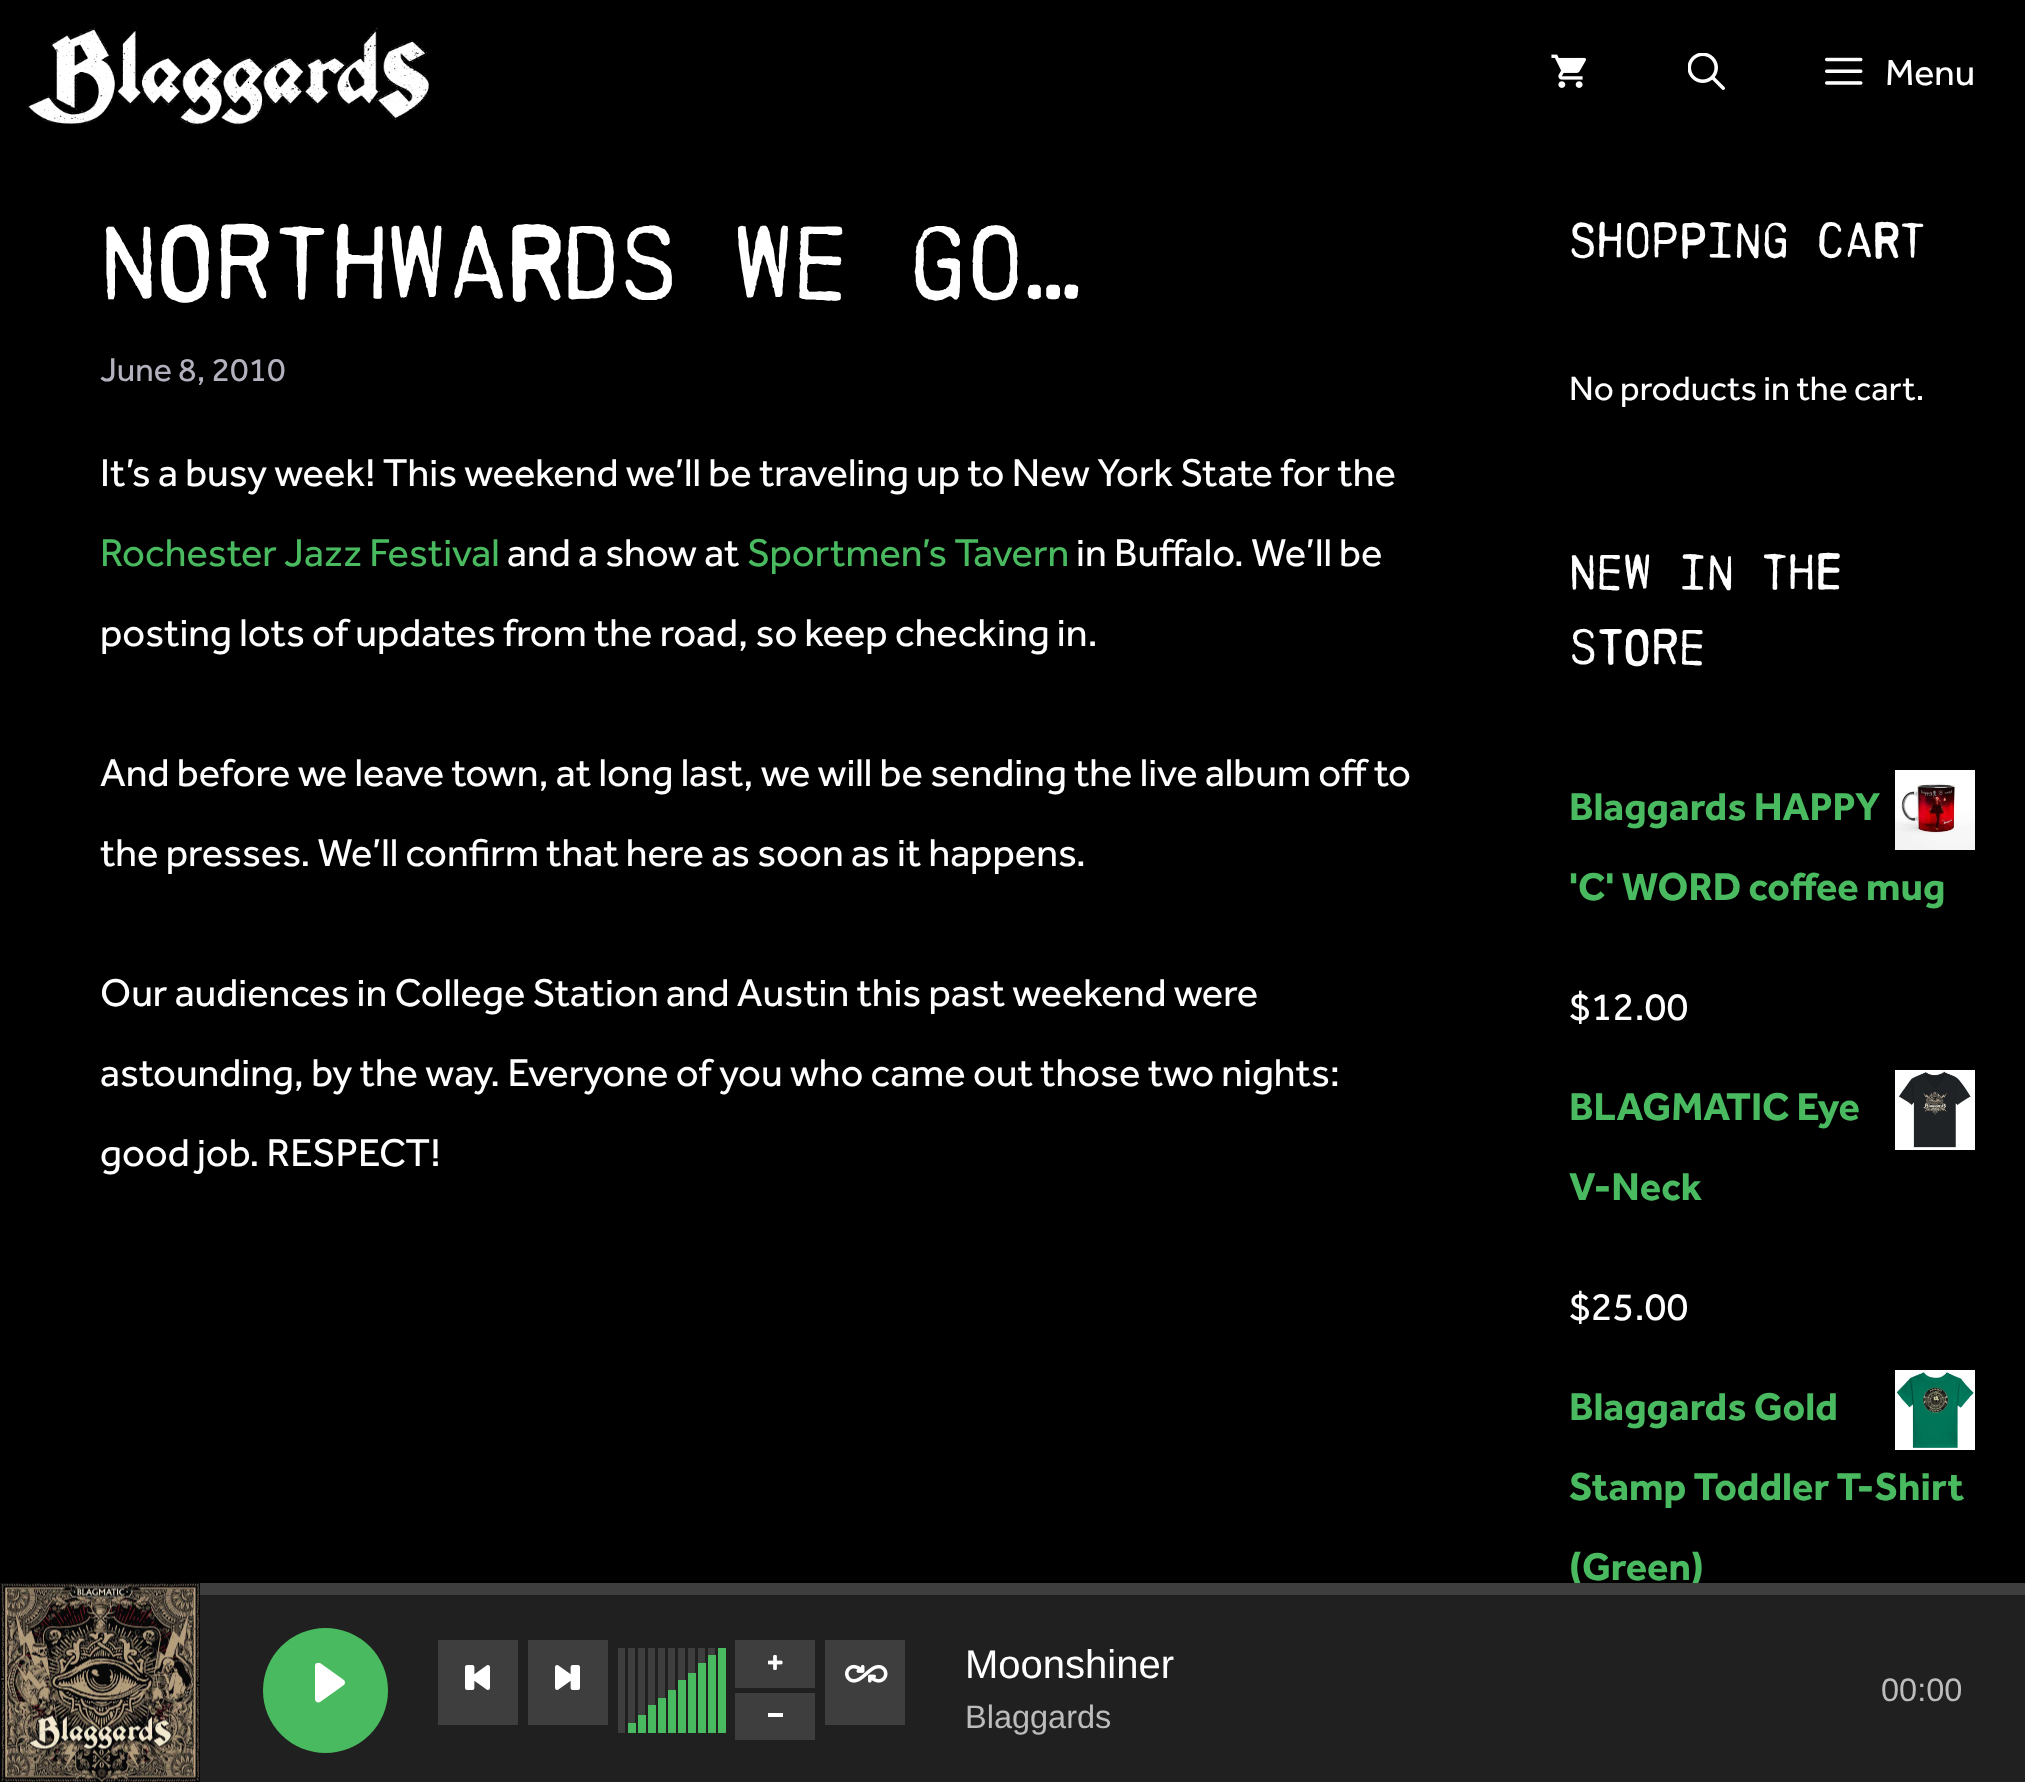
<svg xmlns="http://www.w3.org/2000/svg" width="2025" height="1782">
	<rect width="100%" height="100%" fill="#000000" />
	<image x="27" y="27" width="403" height="98" href="assets/img1.png" />
	<image x="1551" y="54" width="35" height="34" href="assets/img2.png" />
	<image x="1688" y="53" width="37" height="37" href="assets/img3.png" />
	<image x="1825" y="57" width="38" height="28" href="assets/img4.png" />
	<text x="1885" y="85" font-family="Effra" font-size="37.5" fill="#FFFFFF">Menu</text>
	<text x="100" y="300" font-family="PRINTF" font-size="105" fill="#FFFFFF">Northwards we go…</text>
	<text x="100" y="381" font-family="Effra" font-size="34" fill="#B2B2BE">June 8, 2010</text>
	<text x="100" y="486" font-family="Effra" font-size="40" fill="#FFFFFF">It’s a busy week! This weekend we’ll be traveling up to New York State for the</text>
	<text x="100" y="566" font-family="Effra" font-size="40" fill="#49BA5F">Rochester Jazz Festival</text>
	<text x="507" y="566" font-family="Effra" font-size="40" fill="#FFFFFF">and a show at</text>
	<text x="747" y="566" font-family="Effra" font-size="40" fill="#49BA5F">Sportmen’s Tavern</text>
	<g font-family="Effra" font-size="40" fill="#FFFFFF">
		<text x="1076" y="566">in Buffalo. We’ll be</text>
		<text x="100" y="646">posting lots of updates from the road, so keep checking in.</text>
		<text x="100" y="786">And before we leave town, at long last, we will be sending the live album off to</text>
		<text x="100" y="866">the presses. We’ll confirm that here as soon as it happens.</text>
		<text x="100" y="1006">Our audiences in College Station and Austin this past weekend were</text>
		<text x="100" y="1086">astounding, by the way. Everyone of you who came out those two nights:</text>
		<text x="100" y="1166">good job. RESPECT!</text>
	</g>
	<text x="1569" y="258" font-family="PRINTF" font-size="50" fill="#FFFFFF">Shopping Cart</text>
	<text x="1569" y="400" font-family="Effra" font-size="35" fill="#FFFFFF">No products in the cart.</text>
	<g font-family="PRINTF" font-size="50" fill="#FFFFFF">
		<text x="1569" y="590">New in the</text>
		<text x="1569" y="665">Store</text>
	</g>
	<text x="1569" y="820" font-family="Effra" font-size="40" font-weight="700" fill="#49BA5F">Blaggards HAPPY</text>
	<image x="1895" y="770" width="80" height="80" href="assets/img5.png" />
	<text x="1569" y="900" font-family="Effra" font-size="40" font-weight="700" fill="#49BA5F">'C' WORD coffee mug</text>
	<text x="1569" y="1020" font-family="Effra" font-size="40" fill="#FFFFFF">$12.00</text>
	<text x="1569" y="1120" font-family="Effra" font-size="40" font-weight="700" fill="#49BA5F">BLAGMATIC Eye</text>
	<image x="1895" y="1070" width="80" height="80" href="assets/img6.png" />
	<text x="1569" y="1200" font-family="Effra" font-size="40" font-weight="700" fill="#49BA5F">V-Neck</text>
	<text x="1569" y="1320" font-family="Effra" font-size="40" fill="#FFFFFF">$25.00</text>
	<text x="1569" y="1420" font-family="Effra" font-size="40" font-weight="700" fill="#49BA5F">Blaggards Gold</text>
	<image x="1895" y="1370" width="80" height="80" href="assets/img7.png" />
	<g font-family="Effra" font-size="40" font-weight="700" fill="#49BA5F">
		<text x="1569" y="1500">Stamp Toddler T-Shirt</text>
		<text x="1569" y="1580">(Green)</text>
	</g>
	<rect x="200" y="1595" width="1825" height="187" fill="#202020" />
	<image x="0" y="1582" width="200" height="200" href="assets/img8.png" />
	<rect x="200" y="1583" width="1825" height="12" fill="#3E3E3E" />
	<circle cx="325.5" cy="1690.5" r="62.5" fill="#49BA5F" />
	<image x="315" y="1663" width="30" height="40" href="assets/img9.png" />
	<rect x="438" y="1640" width="80" height="85" fill="#3E3E3E" />
	<image x="465" y="1665" width="25" height="25" href="assets/img10.png" />
	<rect x="528" y="1640" width="80" height="85" fill="#3E3E3E" />
	<image x="555" y="1665" width="25" height="25" href="assets/img11.png" />
	<rect x="618" y="1648" width="7" height="85" fill="#3E3E3E" />
	<rect x="628" y="1648" width="7" height="75" fill="#3E3E3E" />
	<rect x="628" y="1723" width="8" height="10" fill="#49BA5F" />
	<rect x="638" y="1648" width="7" height="67" fill="#3E3E3E" />
	<rect x="638" y="1715" width="8" height="18" fill="#49BA5F" />
	<rect x="648" y="1648" width="7" height="57" fill="#3E3E3E" />
	<rect x="648" y="1705" width="8" height="28" fill="#49BA5F" />
	<rect x="658" y="1648" width="7" height="50" fill="#3E3E3E" />
	<rect x="658" y="1698" width="8" height="35" fill="#49BA5F" />
	<rect x="668" y="1648" width="7" height="42" fill="#3E3E3E" />
	<rect x="668" y="1690" width="8" height="43" fill="#49BA5F" />
	<rect x="678" y="1648" width="7" height="32" fill="#3E3E3E" />
	<rect x="678" y="1680" width="8" height="53" fill="#49BA5F" />
	<rect x="688" y="1648" width="7" height="25" fill="#3E3E3E" />
	<rect x="688" y="1673" width="8" height="60" fill="#49BA5F" />
	<rect x="698" y="1648" width="7" height="15" fill="#3E3E3E" />
	<rect x="698" y="1663" width="8" height="70" fill="#49BA5F" />
	<rect x="708" y="1648" width="7" height="7" fill="#3E3E3E" />
	<rect x="708" y="1655" width="8" height="78" fill="#49BA5F" />
	<rect x="718" y="1648" width="8" height="85" fill="#49BA5F" />
	<rect x="735" y="1640" width="80" height="48" fill="#3E3E3E" />
	<image x="768" y="1655" width="15" height="15" href="assets/img12.png" />
	<rect x="735" y="1693" width="80" height="47" fill="#3E3E3E" />
	<rect x="768" y="1713" width="15" height="4" fill="#FFFFFF" />
	<rect x="825" y="1640" width="80" height="85" fill="#3E3E3E" />
	<image x="845" y="1664" width="43" height="19" href="assets/img13.png" />
	<text x="965" y="1678" font-family="Liberation Sans" font-size="40" fill="#FFFFFF">Moonshiner</text>
	<g font-family="Liberation Sans" font-size="32.5" fill="#BCBCBC">
		<text x="965" y="1728">Blaggards</text>
		<text x="1881" y="1701">00:00</text>
	</g>
</svg>
